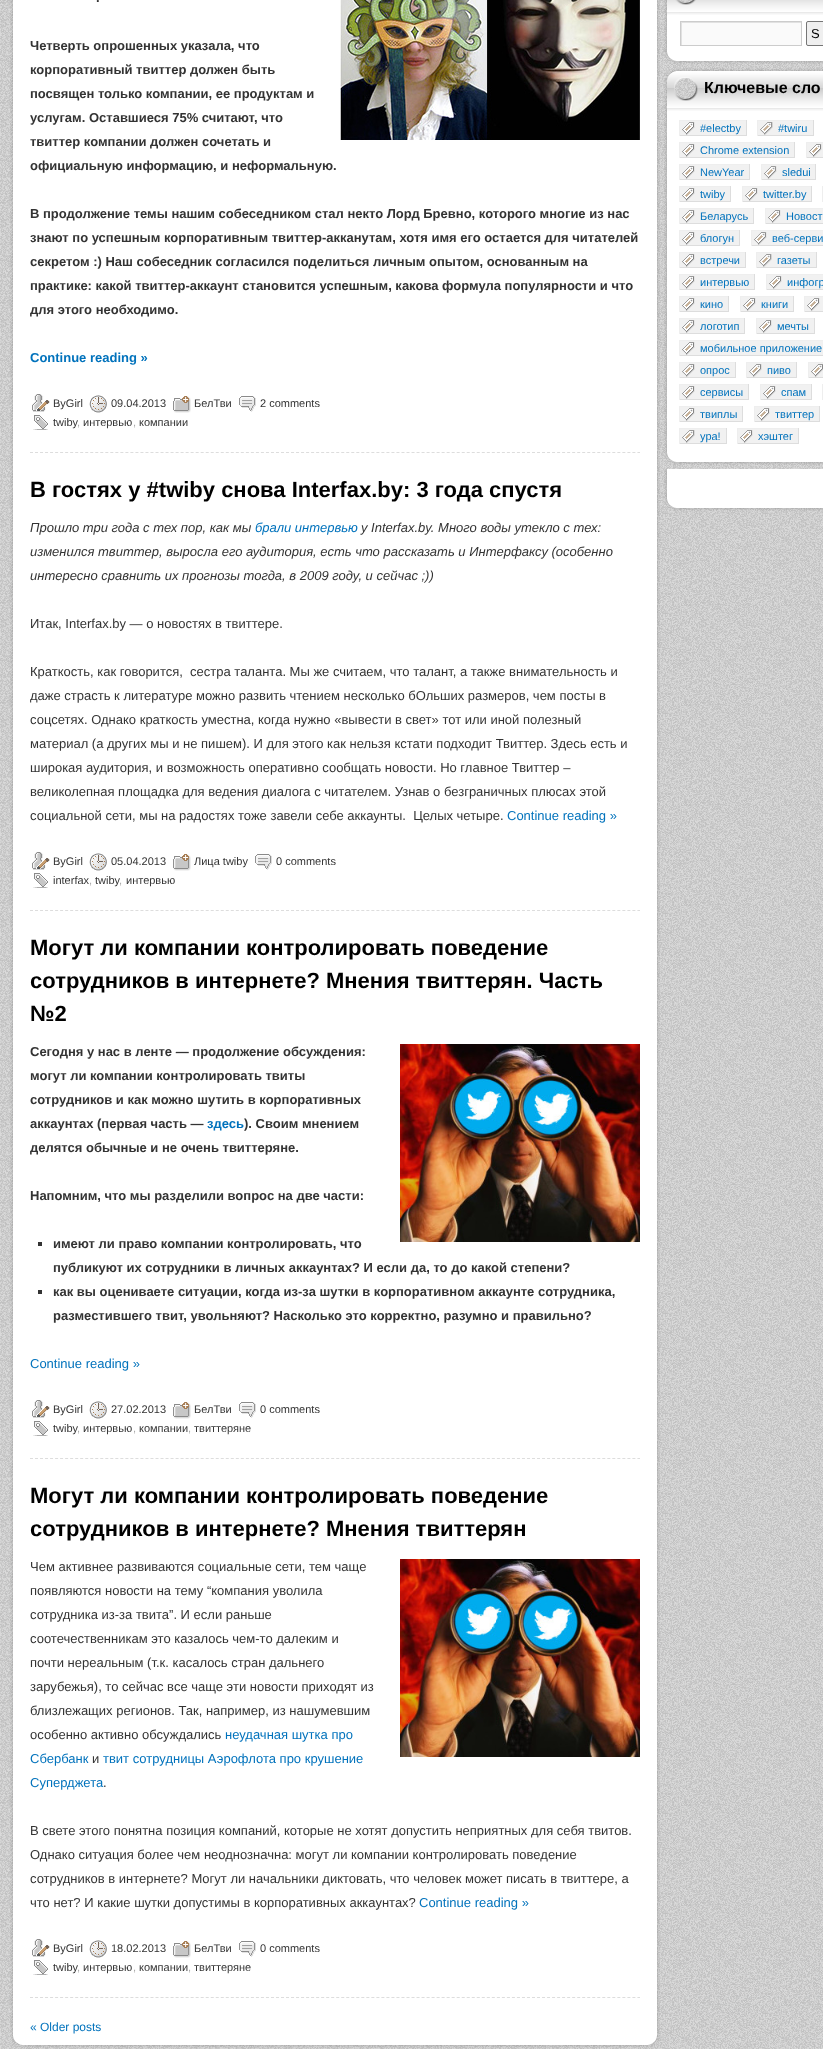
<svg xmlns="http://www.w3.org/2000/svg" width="823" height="2049">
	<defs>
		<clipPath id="clip1"><rect x="681" y="22" width="120" height="23" /></clipPath>
	</defs>
	<rect width="100%" height="100%" fill="#FFFFFF" />
	<image x="0" y="0" width="823" height="2049" href="assets/img1.png" />
	<image x="10" y="0" width="650" height="2036" href="assets/img2.png" />
	<path d="M30 452.5H640" fill="none" stroke="#DDDDDD" stroke-dasharray="3 2.02" />
	<text x="96" y="2" font-family="Liberation Sans" font-size="13" font-weight="700" fill="#333333">.</text>
	<image x="340" y="0" width="300" height="140" href="assets/img3.png" />
	<g font-family="Liberation Sans" font-size="13" font-weight="700" fill="#333333">
		<text x="30" y="50">Четверть опрошенных указала, что</text>
		<text x="30" y="74">корпоративный твиттер должен быть</text>
		<text x="30" y="98">посвящен только компании, ее продуктам и</text>
		<text x="30" y="122">услугам. Оставшиеся 75% считают, что</text>
		<text x="30" y="146">твиттер компании должен сочетать и</text>
		<text x="30" y="170">официальную информацию, и неформальную.</text>
		<text x="30" y="218">В продолжение темы нашим собеседником стал некто Лорд Бревно, которого многие из нас</text>
		<text x="30" y="242">знают по успешным корпоративным твиттер-акканутам, хотя имя его остается для читателей</text>
		<text x="30" y="266">секретом :) Наш собеседник согласился поделиться личным опытом, основанным на</text>
		<text x="30" y="290">практике: какой твиттер-аккаунт становится успешным, какова формула популярности и что</text>
		<text x="30" y="314">для этого необходимо.</text>
	</g>
	<text x="30" y="362" font-family="Liberation Sans" font-size="13" font-weight="700" fill="#0072BC">Continue reading »</text>
	<image x="32" y="394" width="18" height="18" href="assets/img4.png" />
	<text x="53" y="407" font-family="Liberation Sans" font-size="11" fill="#333333">ByGirl</text>
	<image x="89" y="395" width="18" height="18" href="assets/img5.png" />
	<text x="111" y="407" font-family="Liberation Sans" font-size="11" fill="#333333">09.04.2013</text>
	<image x="173" y="396" width="18" height="17" href="assets/img6.png" />
	<text x="194" y="407" font-family="Liberation Sans" font-size="11" fill="#333333">БелТви</text>
	<image x="239" y="396" width="17" height="16" href="assets/img7.png" />
	<text x="260" y="407" font-family="Liberation Sans" font-size="11" fill="#333333">2 comments</text>
	<image x="33" y="415" width="15" height="15" href="assets/img8.png" />
	<text x="53" y="426" font-family="Liberation Sans" font-size="11" fill="#333333">twiby</text>
	<text x="77" y="426" font-family="Liberation Sans" font-size="11" fill="#AAAAAA">,</text>
	<text x="83" y="426" font-family="Liberation Sans" font-size="11" fill="#333333">интервью</text>
	<text x="133" y="426" font-family="Liberation Sans" font-size="11" fill="#AAAAAA">,</text>
	<text x="139" y="426" font-family="Liberation Sans" font-size="11" fill="#333333">компании</text>
	<path d="M30 910.5H640" fill="none" stroke="#DDDDDD" stroke-dasharray="3 2.02" />
	<text x="30" y="497" font-family="Liberation Sans" font-size="22" font-weight="700" fill="#000000">В гостях у #twiby снова Interfax.by: 3 года спустя</text>
	<text x="30" y="532" font-family="Liberation Sans" font-size="13" font-style="italic" fill="#333333">Прошло три года с тех пор, как мы</text>
	<text x="255" y="532" font-family="Liberation Sans" font-size="13" font-style="italic" fill="#0072BC">брали интервью</text>
	<g font-family="Liberation Sans" font-size="13" font-style="italic" fill="#333333">
		<text x="361" y="532">у Interfax.by. Много воды утекло с тех:</text>
		<text x="30" y="556">изменился твиттер, выросла его аудитория, есть что рассказать и Интерфаксу (особенно</text>
		<text x="30" y="580">интересно сравнить их прогнозы тогда, в 2009 году, и сейчас ;))</text>
	</g>
	<g font-family="Liberation Sans" font-size="13" fill="#333333">
		<text x="30" y="628">Итак, Interfax.by — о новостях в твиттере.</text>
		<text x="30" y="676" xml:space="preserve">Краткость, как говорится,  сестра таланта. Мы же считаем, что талант, а также внимательность и</text>
		<text x="30" y="700">даже страсть к литературе можно развить чтением несколько бОльших размеров, чем посты в</text>
		<text x="30" y="724">соцсетях. Однако краткость уместна, когда нужно «вывести в свет» тот или иной полезный</text>
		<text x="30" y="748">материал (а других мы и не пишем). И для этого как нельзя кстати подходит Твиттер. Здесь есть и</text>
		<text x="30" y="772">широкая аудитория, и возможность оперативно сообщать новости. Но главное Твиттер –</text>
		<text x="30" y="796">великолепная площадка для ведения диалога с читателем. Узнав о безграничных плюсах этой</text>
		<text x="30" y="820" xml:space="preserve">социальной сети, мы на радостях тоже завели себе аккаунты.  Целых четыре.</text>
	</g>
	<text x="507" y="820" font-family="Liberation Sans" font-size="13" fill="#0072BC">Continue reading »</text>
	<image x="32" y="852" width="18" height="18" href="assets/img4.png" />
	<text x="53" y="865" font-family="Liberation Sans" font-size="11" fill="#333333">ByGirl</text>
	<image x="89" y="853" width="18" height="18" href="assets/img5.png" />
	<text x="111" y="865" font-family="Liberation Sans" font-size="11" fill="#333333">05.04.2013</text>
	<image x="173" y="854" width="18" height="17" href="assets/img9.png" />
	<text x="194" y="865" font-family="Liberation Sans" font-size="11" fill="#333333">Лица twiby</text>
	<image x="255" y="854" width="17" height="16" href="assets/img7.png" />
	<text x="276" y="865" font-family="Liberation Sans" font-size="11" fill="#333333">0 comments</text>
	<image x="33" y="873" width="15" height="15" href="assets/img8.png" />
	<text x="53" y="884" font-family="Liberation Sans" font-size="11" fill="#333333">interfax</text>
	<text x="89" y="884" font-family="Liberation Sans" font-size="11" fill="#AAAAAA">,</text>
	<g font-family="Liberation Sans" font-size="11" fill="#333333">
		<text x="95" y="884">twiby</text>
		<text x="126" y="884">интервью</text>
	</g>
	<text x="119" y="884" font-family="Liberation Sans" font-size="11" fill="#AAAAAA">,</text>
	<path d="M30 1458.5H640" fill="none" stroke="#DDDDDD" stroke-dasharray="3 2.02" />
	<g font-family="Liberation Sans" font-size="22" font-weight="700" fill="#000000">
		<text x="30" y="955">Могут ли компании контролировать поведение</text>
		<text x="30" y="988">сотрудников в интернете? Мнения твиттерян. Часть</text>
		<text x="30" y="1021">№2</text>
	</g>
	<text x="30" y="1056" font-family="Liberation Sans" font-size="13" font-weight="700" fill="#333333">Сегодня у нас в ленте — продолжение обсуждения:</text>
	<image x="400" y="1044" width="240" height="198" href="assets/img10.png" />
	<g font-family="Liberation Sans" font-size="13" font-weight="700" fill="#333333">
		<text x="30" y="1080">могут ли компании контролировать твиты</text>
		<text x="30" y="1104">сотрудников и как можно шутить в корпоративных</text>
		<text x="30" y="1128">аккаунтах (первая часть —</text>
	</g>
	<text x="207" y="1128" font-family="Liberation Sans" font-size="13" font-weight="700" fill="#0072BC">здесь</text>
	<g font-family="Liberation Sans" font-size="13" font-weight="700" fill="#333333">
		<text x="244" y="1128">). Своим мнением</text>
		<text x="30" y="1152">делятся обычные и не очень твиттеряне.</text>
		<text x="30" y="1200">Напомним, что мы разделили вопрос на две части:</text>
	</g>
	<rect x="38" y="1242" width="4" height="4" fill="#333333" />
	<g font-family="Liberation Sans" font-size="13" font-weight="700" fill="#333333">
		<text x="53" y="1248">имеют ли право компании контролировать, что</text>
		<text x="53" y="1272">публикуют их сотрудники в личных аккаунтах? И если да, то до какой степени?</text>
	</g>
	<rect x="38" y="1290" width="4" height="4" fill="#333333" />
	<g font-family="Liberation Sans" font-size="13" font-weight="700" fill="#333333">
		<text x="53" y="1296">как вы оцениваете ситуации, когда из-за шутки в корпоративном аккаунте сотрудника,</text>
		<text x="53" y="1320">разместившего твит, увольняют? Насколько это корректно, разумно и правильно?</text>
	</g>
	<text x="30" y="1368" font-family="Liberation Sans" font-size="13" fill="#0072BC">Continue reading »</text>
	<image x="32" y="1400" width="18" height="18" href="assets/img4.png" />
	<text x="53" y="1413" font-family="Liberation Sans" font-size="11" fill="#333333">ByGirl</text>
	<image x="89" y="1401" width="18" height="18" href="assets/img5.png" />
	<text x="111" y="1413" font-family="Liberation Sans" font-size="11" fill="#333333">27.02.2013</text>
	<image x="173" y="1402" width="18" height="17" href="assets/img6.png" />
	<text x="194" y="1413" font-family="Liberation Sans" font-size="11" fill="#333333">БелТви</text>
	<image x="239" y="1402" width="17" height="16" href="assets/img7.png" />
	<text x="260" y="1413" font-family="Liberation Sans" font-size="11" fill="#333333">0 comments</text>
	<image x="33" y="1421" width="15" height="15" href="assets/img8.png" />
	<text x="53" y="1432" font-family="Liberation Sans" font-size="11" fill="#333333">twiby</text>
	<text x="77" y="1432" font-family="Liberation Sans" font-size="11" fill="#AAAAAA">,</text>
	<text x="83" y="1432" font-family="Liberation Sans" font-size="11" fill="#333333">интервью</text>
	<text x="133" y="1432" font-family="Liberation Sans" font-size="11" fill="#AAAAAA">,</text>
	<text x="139" y="1432" font-family="Liberation Sans" font-size="11" fill="#333333">компании</text>
	<text x="188" y="1432" font-family="Liberation Sans" font-size="11" fill="#AAAAAA">,</text>
	<text x="194" y="1432" font-family="Liberation Sans" font-size="11" fill="#333333">твиттеряне</text>
	<path d="M30 1997.5H640" fill="none" stroke="#DDDDDD" stroke-dasharray="3 2.02" />
	<g font-family="Liberation Sans" font-size="22" font-weight="700" fill="#000000">
		<text x="30" y="1503">Могут ли компании контролировать поведение</text>
		<text x="30" y="1536">сотрудников в интернете? Мнения твиттерян</text>
	</g>
	<text x="30" y="1571" font-family="Liberation Sans" font-size="13" fill="#333333">Чем активнее развиваются социальные сети, тем чаще</text>
	<image x="400" y="1559" width="240" height="198" href="assets/img10.png" />
	<g font-family="Liberation Sans" font-size="13" fill="#333333">
		<text x="30" y="1595">появляются новости на тему “компания уволила</text>
		<text x="30" y="1619">сотрудника из-за твита”. И если раньше</text>
		<text x="30" y="1643">соотечественникам это казалось чем-то далеким и</text>
		<text x="30" y="1667">почти нереальным (т.к. касалось стран дальнего</text>
		<text x="30" y="1691">зарубежья), то сейчас все чаще эти новости приходят из</text>
		<text x="30" y="1715">близлежащих регионов. Так, например, из нашумевшим</text>
		<text x="30" y="1739">особенно активно обсуждались</text>
	</g>
	<g font-family="Liberation Sans" font-size="13" fill="#0072BC">
		<text x="225" y="1739">неудачная шутка про</text>
		<text x="30" y="1763">Сбербанк</text>
	</g>
	<text x="92" y="1763" font-family="Liberation Sans" font-size="13" fill="#333333">и</text>
	<g font-family="Liberation Sans" font-size="13" fill="#0072BC">
		<text x="103" y="1763">твит сотрудницы Аэрофлота про крушение</text>
		<text x="30" y="1787">Суперджета</text>
	</g>
	<g font-family="Liberation Sans" font-size="13" fill="#333333">
		<text x="103" y="1787">.</text>
		<text x="30" y="1835">В свете этого понятна позиция компаний, которые не хотят допустить неприятных для себя твитов.</text>
		<text x="30" y="1859">Однако ситуация более чем неоднозначна: могут ли компании контролировать поведение</text>
		<text x="30" y="1883">сотрудников в интернете? Могут ли начальники диктовать, что человек может писать в твиттере, а</text>
		<text x="30" y="1907">что нет? И какие шутки допустимы в корпоративных аккаунтах?</text>
	</g>
	<text x="419" y="1907" font-family="Liberation Sans" font-size="13" fill="#0072BC">Continue reading »</text>
	<image x="32" y="1939" width="18" height="18" href="assets/img4.png" />
	<text x="53" y="1952" font-family="Liberation Sans" font-size="11" fill="#333333">ByGirl</text>
	<image x="89" y="1940" width="18" height="18" href="assets/img5.png" />
	<text x="111" y="1952" font-family="Liberation Sans" font-size="11" fill="#333333">18.02.2013</text>
	<image x="173" y="1941" width="18" height="17" href="assets/img6.png" />
	<text x="194" y="1952" font-family="Liberation Sans" font-size="11" fill="#333333">БелТви</text>
	<image x="239" y="1941" width="17" height="16" href="assets/img7.png" />
	<text x="260" y="1952" font-family="Liberation Sans" font-size="11" fill="#333333">0 comments</text>
	<image x="33" y="1960" width="15" height="15" href="assets/img8.png" />
	<text x="53" y="1971" font-family="Liberation Sans" font-size="11" fill="#333333">twiby</text>
	<text x="77" y="1971" font-family="Liberation Sans" font-size="11" fill="#AAAAAA">,</text>
	<text x="83" y="1971" font-family="Liberation Sans" font-size="11" fill="#333333">интервью</text>
	<text x="133" y="1971" font-family="Liberation Sans" font-size="11" fill="#AAAAAA">,</text>
	<text x="139" y="1971" font-family="Liberation Sans" font-size="11" fill="#333333">компании</text>
	<text x="188" y="1971" font-family="Liberation Sans" font-size="11" fill="#AAAAAA">,</text>
	<text x="194" y="1971" font-family="Liberation Sans" font-size="11" fill="#333333">твиттеряне</text>
	<text x="30" y="2031" font-family="Liberation Sans" font-size="12" fill="#0072BC">« Older posts</text>
	<image x="10" y="2036" width="650" height="13" href="assets/img11.png" />
	<image x="664" y="15" width="159" height="37" href="assets/img12.png" />
	<image x="664" y="0" width="159" height="15" href="assets/img13.png" />
	<rect x="682" y="23" width="119" height="22" fill="#FAFAFA" />
	<g clip-path="url(#clip1)">
		<path d="M582-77H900V144H582ZM682 23H802V46H682Z" fill="#E1E1E1" fill-rule="evenodd" />
	</g>
	<rect x="680.5" y="21.5" width="121" height="24" fill="none" stroke="#CCCCCC" />
	<rect x="806.5" y="21.5" width="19" height="24" rx="1.5" fill="#EFEFEF" stroke="#767676" />
	<text x="811" y="38" font-family="Liberation Sans" font-size="13" fill="#000000">S</text>
	<image x="664" y="52" width="159" height="12" href="assets/img14.png" />
	<image x="664" y="111" width="159" height="342" href="assets/img15.png" />
	<image x="664" y="68" width="159" height="43" href="assets/img16.png" />
	<text x="704" y="93" font-family="Liberation Sans" font-size="16" font-weight="700" fill="#000000">Ключевые сло</text>
	<rect x="680" y="121" width="66" height="14" fill="#F1F1F1" />
	<image x="682" y="122" width="13" height="13" href="assets/img17.png" />
	<rect x="679" y="120" width="68" height="1" fill="#EEEEEE" />
	<rect x="746" y="120" width="1" height="16" fill="#DDDDDD" />
	<rect x="679" y="135" width="68" height="1" fill="#DDDDDD" />
	<rect x="679" y="120" width="1" height="16" fill="#EEEEEE" />
	<text x="700" y="132" font-family="Liberation Sans" font-size="11" fill="#0072BC">#electby</text>
	<rect x="758" y="121" width="55" height="14" fill="#F1F1F1" />
	<image x="760" y="122" width="13" height="13" href="assets/img18.png" />
	<rect x="757" y="120" width="57" height="1" fill="#EEEEEE" />
	<rect x="813" y="120" width="1" height="16" fill="#DDDDDD" />
	<rect x="757" y="135" width="57" height="1" fill="#DDDDDD" />
	<rect x="757" y="120" width="1" height="16" fill="#EEEEEE" />
	<text x="778" y="132" font-family="Liberation Sans" font-size="11" fill="#0072BC">#twiru</text>
	<rect x="680" y="143" width="114" height="14" fill="#F1F1F1" />
	<image x="682" y="144" width="13" height="13" href="assets/img17.png" />
	<rect x="679" y="142" width="116" height="1" fill="#EEEEEE" />
	<rect x="794" y="142" width="1" height="16" fill="#DDDDDD" />
	<rect x="679" y="157" width="116" height="1" fill="#DDDDDD" />
	<rect x="679" y="142" width="1" height="16" fill="#EEEEEE" />
	<text x="700" y="154" font-family="Liberation Sans" font-size="11" fill="#0072BC">Chrome extension</text>
	<rect x="807" y="143" width="16" height="14" fill="#F1F1F1" />
	<image x="809" y="144" width="13" height="13" href="assets/img17.png" />
	<rect x="806" y="142" width="17" height="1" fill="#EEEEEE" />
	<rect x="806" y="157" width="17" height="1" fill="#DDDDDD" />
	<rect x="806" y="142" width="1" height="16" fill="#EEEEEE" />
	<rect x="680" y="165" width="69" height="14" fill="#F1F1F1" />
	<image x="682" y="166" width="13" height="13" href="assets/img17.png" />
	<rect x="679" y="164" width="71" height="1" fill="#EEEEEE" />
	<rect x="749" y="164" width="1" height="16" fill="#DDDDDD" />
	<rect x="679" y="179" width="71" height="1" fill="#DDDDDD" />
	<rect x="679" y="164" width="1" height="16" fill="#EEEEEE" />
	<text x="700" y="176" font-family="Liberation Sans" font-size="11" fill="#0072BC">NewYear</text>
	<rect x="762" y="165" width="53" height="14" fill="#F1F1F1" />
	<image x="764" y="166" width="13" height="13" href="assets/img19.png" />
	<rect x="761" y="164" width="55" height="1" fill="#EEEEEE" />
	<rect x="815" y="164" width="1" height="16" fill="#DDDDDD" />
	<rect x="761" y="179" width="55" height="1" fill="#DDDDDD" />
	<rect x="761" y="164" width="1" height="16" fill="#EEEEEE" />
	<text x="782" y="176" font-family="Liberation Sans" font-size="11" fill="#0072BC">sledui</text>
	<rect x="680" y="187" width="50" height="14" fill="#F1F1F1" />
	<image x="682" y="188" width="13" height="13" href="assets/img17.png" />
	<rect x="679" y="186" width="52" height="1" fill="#EEEEEE" />
	<rect x="730" y="186" width="1" height="16" fill="#DDDDDD" />
	<rect x="679" y="201" width="52" height="1" fill="#DDDDDD" />
	<rect x="679" y="186" width="1" height="16" fill="#EEEEEE" />
	<text x="700" y="198" font-family="Liberation Sans" font-size="11" fill="#0072BC">twiby</text>
	<rect x="743" y="187" width="68" height="14" fill="#F1F1F1" />
	<image x="745" y="188" width="13" height="13" href="assets/img20.png" />
	<rect x="742" y="186" width="70" height="1" fill="#EEEEEE" />
	<rect x="811" y="186" width="1" height="16" fill="#DDDDDD" />
	<rect x="742" y="201" width="70" height="1" fill="#DDDDDD" />
	<rect x="742" y="186" width="1" height="16" fill="#EEEEEE" />
	<text x="763" y="198" font-family="Liberation Sans" font-size="11" fill="#0072BC">twitter.by</text>
	<rect x="822" y="186" width="1" height="16" fill="#EEEEEE" />
	<rect x="680" y="209" width="73" height="14" fill="#F1F1F1" />
	<image x="682" y="210" width="13" height="13" href="assets/img17.png" />
	<rect x="679" y="208" width="75" height="1" fill="#EEEEEE" />
	<rect x="753" y="208" width="1" height="16" fill="#DDDDDD" />
	<rect x="679" y="223" width="75" height="1" fill="#DDDDDD" />
	<rect x="679" y="208" width="1" height="16" fill="#EEEEEE" />
	<text x="700" y="220" font-family="Liberation Sans" font-size="11" fill="#0072BC">Беларусь</text>
	<rect x="766" y="209" width="57" height="14" fill="#F1F1F1" />
	<image x="768" y="210" width="13" height="13" href="assets/img21.png" />
	<rect x="765" y="208" width="58" height="1" fill="#EEEEEE" />
	<rect x="765" y="223" width="58" height="1" fill="#DDDDDD" />
	<rect x="765" y="208" width="1" height="16" fill="#EEEEEE" />
	<text x="786" y="220" font-family="Liberation Sans" font-size="11" fill="#0072BC">Новост</text>
	<rect x="680" y="231" width="59" height="14" fill="#F1F1F1" />
	<image x="682" y="232" width="13" height="13" href="assets/img17.png" />
	<rect x="679" y="230" width="61" height="1" fill="#EEEEEE" />
	<rect x="739" y="230" width="1" height="16" fill="#DDDDDD" />
	<rect x="679" y="245" width="61" height="1" fill="#DDDDDD" />
	<rect x="679" y="230" width="1" height="16" fill="#EEEEEE" />
	<text x="700" y="242" font-family="Liberation Sans" font-size="11" fill="#0072BC">блогун</text>
	<rect x="752" y="231" width="71" height="14" fill="#F1F1F1" />
	<image x="754" y="232" width="13" height="13" href="assets/img22.png" />
	<rect x="751" y="230" width="72" height="1" fill="#EEEEEE" />
	<rect x="751" y="245" width="72" height="1" fill="#DDDDDD" />
	<rect x="751" y="230" width="1" height="16" fill="#EEEEEE" />
	<text x="772" y="242" font-family="Liberation Sans" font-size="11" fill="#0072BC">веб-серви</text>
	<rect x="680" y="253" width="65" height="14" fill="#F1F1F1" />
	<image x="682" y="254" width="13" height="13" href="assets/img17.png" />
	<rect x="679" y="252" width="67" height="1" fill="#EEEEEE" />
	<rect x="745" y="252" width="1" height="16" fill="#DDDDDD" />
	<rect x="679" y="267" width="67" height="1" fill="#DDDDDD" />
	<rect x="679" y="252" width="1" height="16" fill="#EEEEEE" />
	<text x="700" y="264" font-family="Liberation Sans" font-size="11" fill="#0072BC">встречи</text>
	<rect x="757" y="253" width="59" height="14" fill="#F1F1F1" />
	<image x="759" y="254" width="13" height="13" href="assets/img23.png" />
	<rect x="756" y="252" width="61" height="1" fill="#EEEEEE" />
	<rect x="816" y="252" width="1" height="16" fill="#DDDDDD" />
	<rect x="756" y="267" width="61" height="1" fill="#DDDDDD" />
	<rect x="756" y="252" width="1" height="16" fill="#EEEEEE" />
	<text x="777" y="264" font-family="Liberation Sans" font-size="11" fill="#0072BC">газеты</text>
	<rect x="680" y="275" width="74" height="14" fill="#F1F1F1" />
	<image x="682" y="276" width="13" height="13" href="assets/img17.png" />
	<rect x="679" y="274" width="76" height="1" fill="#EEEEEE" />
	<rect x="754" y="274" width="1" height="16" fill="#DDDDDD" />
	<rect x="679" y="289" width="76" height="1" fill="#DDDDDD" />
	<rect x="679" y="274" width="1" height="16" fill="#EEEEEE" />
	<text x="700" y="286" font-family="Liberation Sans" font-size="11" fill="#0072BC">интервью</text>
	<rect x="767" y="275" width="56" height="14" fill="#F1F1F1" />
	<image x="769" y="276" width="13" height="13" href="assets/img17.png" />
	<rect x="766" y="274" width="57" height="1" fill="#EEEEEE" />
	<rect x="766" y="289" width="57" height="1" fill="#DDDDDD" />
	<rect x="766" y="274" width="1" height="16" fill="#EEEEEE" />
	<text x="787" y="286" font-family="Liberation Sans" font-size="11" fill="#0072BC">инфогр</text>
	<rect x="680" y="297" width="48" height="14" fill="#F1F1F1" />
	<image x="682" y="298" width="13" height="13" href="assets/img17.png" />
	<rect x="679" y="296" width="50" height="1" fill="#EEEEEE" />
	<rect x="728" y="296" width="1" height="16" fill="#DDDDDD" />
	<rect x="679" y="311" width="50" height="1" fill="#DDDDDD" />
	<rect x="679" y="296" width="1" height="16" fill="#EEEEEE" />
	<text x="700" y="308" font-family="Liberation Sans" font-size="11" fill="#0072BC">кино</text>
	<rect x="741" y="297" width="52" height="14" fill="#F1F1F1" />
	<image x="743" y="298" width="13" height="13" href="assets/img17.png" />
	<rect x="740" y="296" width="54" height="1" fill="#EEEEEE" />
	<rect x="793" y="296" width="1" height="16" fill="#DDDDDD" />
	<rect x="740" y="311" width="54" height="1" fill="#DDDDDD" />
	<rect x="740" y="296" width="1" height="16" fill="#EEEEEE" />
	<text x="761" y="308" font-family="Liberation Sans" font-size="11" fill="#0072BC">книги</text>
	<rect x="805" y="297" width="18" height="14" fill="#F1F1F1" />
	<image x="807" y="298" width="13" height="13" href="assets/img17.png" />
	<rect x="804" y="296" width="19" height="1" fill="#EEEEEE" />
	<rect x="804" y="311" width="19" height="1" fill="#DDDDDD" />
	<rect x="804" y="296" width="1" height="16" fill="#EEEEEE" />
	<rect x="680" y="319" width="64" height="14" fill="#F1F1F1" />
	<image x="682" y="320" width="13" height="13" href="assets/img24.png" />
	<rect x="679" y="318" width="66" height="1" fill="#EEEEEE" />
	<rect x="744" y="318" width="1" height="16" fill="#DDDDDD" />
	<rect x="679" y="333" width="66" height="1" fill="#DDDDDD" />
	<rect x="679" y="318" width="1" height="16" fill="#EEEEEE" />
	<text x="700" y="330" font-family="Liberation Sans" font-size="11" fill="#0072BC">логотип</text>
	<rect x="757" y="319" width="57" height="14" fill="#F1F1F1" />
	<image x="759" y="320" width="13" height="13" href="assets/img17.png" />
	<rect x="756" y="318" width="59" height="1" fill="#EEEEEE" />
	<rect x="814" y="318" width="1" height="16" fill="#DDDDDD" />
	<rect x="756" y="333" width="59" height="1" fill="#DDDDDD" />
	<rect x="756" y="318" width="1" height="16" fill="#EEEEEE" />
	<text x="777" y="330" font-family="Liberation Sans" font-size="11" fill="#0072BC">мечты</text>
	<rect x="680" y="341" width="143" height="14" fill="#F1F1F1" />
	<image x="682" y="342" width="13" height="13" href="assets/img17.png" />
	<rect x="679" y="340" width="144" height="1" fill="#EEEEEE" />
	<rect x="679" y="355" width="144" height="1" fill="#DDDDDD" />
	<rect x="679" y="340" width="1" height="16" fill="#EEEEEE" />
	<text x="700" y="352" font-family="Liberation Sans" font-size="11" fill="#0072BC">мобильное приложение</text>
	<rect x="680" y="363" width="55" height="14" fill="#F1F1F1" />
	<image x="682" y="364" width="13" height="13" href="assets/img25.png" />
	<rect x="679" y="362" width="57" height="1" fill="#EEEEEE" />
	<rect x="735" y="362" width="1" height="16" fill="#DDDDDD" />
	<rect x="679" y="377" width="57" height="1" fill="#DDDDDD" />
	<rect x="679" y="362" width="1" height="16" fill="#EEEEEE" />
	<text x="700" y="374" font-family="Liberation Sans" font-size="11" fill="#0072BC">опрос</text>
	<rect x="747" y="363" width="49" height="14" fill="#F1F1F1" />
	<image x="749" y="364" width="13" height="13" href="assets/img25.png" />
	<rect x="746" y="362" width="51" height="1" fill="#EEEEEE" />
	<rect x="796" y="362" width="1" height="16" fill="#DDDDDD" />
	<rect x="746" y="377" width="51" height="1" fill="#DDDDDD" />
	<rect x="746" y="362" width="1" height="16" fill="#EEEEEE" />
	<text x="767" y="374" font-family="Liberation Sans" font-size="11" fill="#0072BC">пиво</text>
	<rect x="809" y="363" width="14" height="14" fill="#F1F1F1" />
	<image x="811" y="364" width="12" height="13" href="assets/img26.png" />
	<rect x="808" y="362" width="15" height="1" fill="#EEEEEE" />
	<rect x="808" y="377" width="15" height="1" fill="#DDDDDD" />
	<rect x="808" y="362" width="1" height="16" fill="#EEEEEE" />
	<rect x="680" y="385" width="68" height="14" fill="#F1F1F1" />
	<image x="682" y="386" width="13" height="13" href="assets/img17.png" />
	<rect x="679" y="384" width="70" height="1" fill="#EEEEEE" />
	<rect x="748" y="384" width="1" height="16" fill="#DDDDDD" />
	<rect x="679" y="399" width="70" height="1" fill="#DDDDDD" />
	<rect x="679" y="384" width="1" height="16" fill="#EEEEEE" />
	<text x="700" y="396" font-family="Liberation Sans" font-size="11" fill="#0072BC">сервисы</text>
	<rect x="761" y="385" width="50" height="14" fill="#F1F1F1" />
	<image x="763" y="386" width="13" height="13" href="assets/img17.png" />
	<rect x="760" y="384" width="52" height="1" fill="#EEEEEE" />
	<rect x="811" y="384" width="1" height="16" fill="#DDDDDD" />
	<rect x="760" y="399" width="52" height="1" fill="#DDDDDD" />
	<rect x="760" y="384" width="1" height="16" fill="#EEEEEE" />
	<text x="781" y="396" font-family="Liberation Sans" font-size="11" fill="#0072BC">спам</text>
	<rect x="822" y="384" width="1" height="16" fill="#EEEEEE" />
	<rect x="680" y="407" width="62" height="14" fill="#F1F1F1" />
	<image x="682" y="408" width="13" height="13" href="assets/img27.png" />
	<rect x="679" y="406" width="64" height="1" fill="#EEEEEE" />
	<rect x="742" y="406" width="1" height="16" fill="#DDDDDD" />
	<rect x="679" y="421" width="64" height="1" fill="#DDDDDD" />
	<rect x="679" y="406" width="1" height="16" fill="#EEEEEE" />
	<text x="700" y="418" font-family="Liberation Sans" font-size="11" fill="#0072BC">твиплы</text>
	<rect x="755" y="407" width="64" height="14" fill="#F1F1F1" />
	<image x="757" y="408" width="13" height="13" href="assets/img17.png" />
	<rect x="754" y="406" width="66" height="1" fill="#EEEEEE" />
	<rect x="819" y="406" width="1" height="16" fill="#DDDDDD" />
	<rect x="754" y="421" width="66" height="1" fill="#DDDDDD" />
	<rect x="754" y="406" width="1" height="16" fill="#EEEEEE" />
	<text x="775" y="418" font-family="Liberation Sans" font-size="11" fill="#0072BC">твиттер</text>
	<rect x="680" y="429" width="46" height="14" fill="#F1F1F1" />
	<image x="682" y="430" width="13" height="13" href="assets/img28.png" />
	<rect x="679" y="428" width="48" height="1" fill="#EEEEEE" />
	<rect x="726" y="428" width="1" height="16" fill="#DDDDDD" />
	<rect x="679" y="443" width="48" height="1" fill="#DDDDDD" />
	<rect x="679" y="428" width="1" height="16" fill="#EEEEEE" />
	<text x="700" y="440" font-family="Liberation Sans" font-size="11" fill="#0072BC">ура!</text>
	<rect x="738" y="429" width="60" height="14" fill="#F1F1F1" />
	<image x="740" y="430" width="13" height="13" href="assets/img17.png" />
	<rect x="737" y="428" width="62" height="1" fill="#EEEEEE" />
	<rect x="798" y="428" width="1" height="16" fill="#DDDDDD" />
	<rect x="737" y="443" width="62" height="1" fill="#DDDDDD" />
	<rect x="737" y="428" width="1" height="16" fill="#EEEEEE" />
	<text x="758" y="440" font-family="Liberation Sans" font-size="11" fill="#0072BC">хэштег</text>
	<image x="664" y="453" width="159" height="12" href="assets/img14.png" />
	<image x="664" y="469" width="159" height="30" href="assets/img29.png" />
	<image x="664" y="499" width="159" height="12" href="assets/img14.png" />
</svg>
